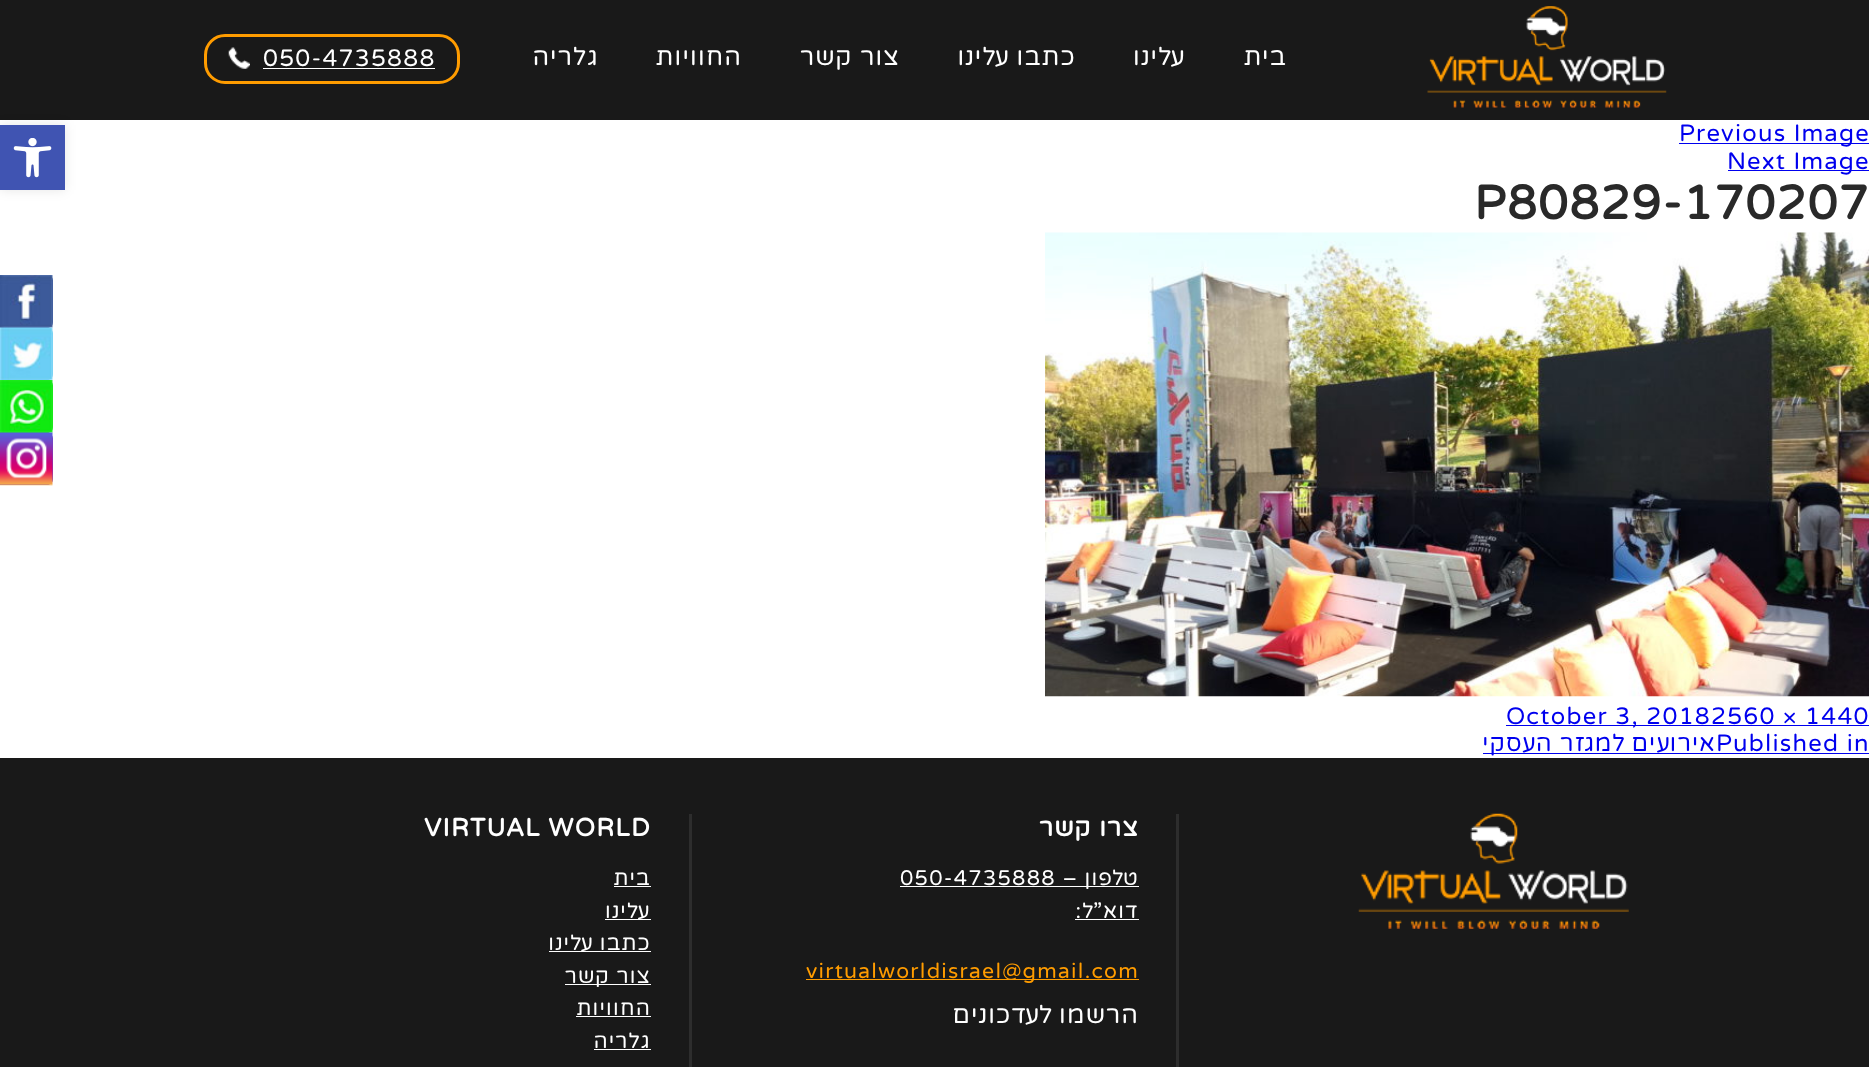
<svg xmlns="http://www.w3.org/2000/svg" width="1869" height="1067">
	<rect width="100%" height="100%" fill="#FFFFFF" />
	<rect x="0" y="0" width="1869" height="120" fill="#191919" />
	<rect x="0" y="125" width="65" height="65" fill="#000000" fill-opacity="0.1" filter="blur(6px)" />
	<rect x="0" y="125" width="65" height="65" fill="#4054B2" />
	<image x="13" y="138" width="39" height="40" href="assets/img1.png" />
	<rect x="205.5" y="35.5" width="253" height="47" rx="19.5" fill="none" stroke="#FF9C00" stroke-width="3" />
	<image x="228" y="47" width="22" height="22" href="assets/img2.png" />
	<text x="263" y="66" font-family="Varela Round" font-size="23.75" letter-spacing="1.25" fill="#FFFFFF">050-4735888</text>
	<rect x="263" y="68" width="172" height="1" fill="#FFFFFF" />
	<g font-family="Varela Round" font-size="25" letter-spacing="1.25" direction="rtl" fill="#FFFFFF">
		<text x="599" y="65">גלריה</text>
		<text x="742" y="65">החוויות</text>
		<text x="900" y="65">צור קשר</text>
		<text x="1076" y="65">כתבו עלינו</text>
		<text x="1186" y="65">עלינו</text>
		<text x="1287" y="65">בית</text>
	</g>
	<image x="1427" y="6" width="240" height="102" href="assets/img3.png" />
	<path d="M-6 275H47C50.5 275 53 277.5 53 281V322C53 325.5 50.5 328 47 328H-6Z" fill="#3C5A9A" />
	<image x="0" y="275" width="53" height="53" href="assets/img4.png" />
	<path d="M-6 328H47C50.5 328 53 330.5 53 334V374C53 377.5 50.5 380 47 380H-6Z" fill="#6BCEF5" />
	<image x="0" y="327" width="53" height="54" href="assets/img5.png" />
	<path d="M-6 380H47C50.5 380 53 382.5 53 386V427C53 430.5 50.5 433 47 433H-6Z" fill="#14E817" />
	<image x="0" y="380" width="53" height="53" href="assets/img6.png" />
	<path d="M-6 433H47C50.5 433 53 435.5 53 439V479C53 482.5 50.5 485 47 485H-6Z" fill="#7744C2" />
	<image x="0" y="432" width="53" height="54" href="assets/img7.png" />
	<rect x="1679" y="143" width="190" height="1" fill="#0000EE" />
	<text x="1679" y="141" font-family="Varela Round" font-size="23.75" letter-spacing="1.25" fill="#0000EE">Previous Image</text>
	<rect x="1728" y="170" width="141" height="1" fill="#0000EE" />
	<text x="1727" y="169" font-family="Varela Round" font-size="23.75" letter-spacing="1.25" fill="#0000EE">Next Image</text>
	<text x="1474" y="219" font-family="Varela Round" font-size="47.5" font-weight="700" letter-spacing="1.25" fill="#292929">P80829-170207</text>
	<image x="1045" y="232" width="824" height="465" href="assets/img8.png" />
	<rect x="1506" y="725" width="363" height="1" fill="#0000EE" />
	<text x="1506" y="724" font-family="Varela Round" font-size="23.75" letter-spacing="1.25" fill="#0000EE">October 3, 20182560 × 1440</text>
	<rect x="1483" y="753" width="386" height="1" fill="#0000EE" />
	<text x="1716" y="751" font-family="Varela Round" font-size="23.75" letter-spacing="1.25" direction="rtl" fill="#0000EE">אירועים למגזר העסקי</text>
	<text x="1716" y="751" font-family="Varela Round" font-size="23.75" letter-spacing="1.25" fill="#0000EE">Published in</text>
	<rect x="0" y="758" width="1869" height="309" fill="#191919" />
	<rect x="689" y="814" width="3" height="253" fill="#2D2D2D" />
	<text x="424" y="836" font-family="Varela Round" font-size="25" font-weight="700" letter-spacing="1.25" fill="#FFFFFF">VIRTUAL WORLD</text>
	<text x="651" y="885" font-family="Varela Round" font-size="21.25" letter-spacing="1.25" direction="rtl" fill="#FFFFFF">בית</text>
	<rect x="614" y="886" width="37" height="1" fill="#FFFFFF" />
	<rect x="605" y="919" width="46" height="1" fill="#FFFFFF" />
	<text x="651" y="918" font-family="Varela Round" font-size="21.25" letter-spacing="1.25" direction="rtl" fill="#FFFFFF">עלינו</text>
	<rect x="549" y="951" width="102" height="1" fill="#FFFFFF" />
	<text x="651" y="950" font-family="Varela Round" font-size="21.25" letter-spacing="1.25" direction="rtl" fill="#FFFFFF">כתבו עלינו</text>
	<rect x="565" y="984" width="86" height="1" fill="#FFFFFF" />
	<g font-family="Varela Round" font-size="21.25" letter-spacing="1.25" direction="rtl" fill="#FFFFFF">
		<text x="651" y="983">צור קשר</text>
		<text x="651" y="1015">החוויות</text>
	</g>
	<rect x="576" y="1016" width="75" height="1" fill="#FFFFFF" />
	<text x="651" y="1048" font-family="Varela Round" font-size="21.25" letter-spacing="1.25" direction="rtl" fill="#FFFFFF">גלריה</text>
	<rect x="594" y="1049" width="57" height="1" fill="#FFFFFF" />
	<rect x="1176" y="814" width="3" height="253" fill="#2D2D2D" />
	<text x="1139" y="836" font-family="Varela Round" font-size="25" font-weight="700" letter-spacing="1.25" direction="rtl" fill="#FFFFFF">צרו קשר</text>
	<text x="900" y="885" font-family="Varela Round" font-size="21.25" letter-spacing="1.25" fill="#FFFFFF">050-4735888</text>
	<rect x="900" y="886" width="239" height="1" fill="#FFFFFF" />
	<g font-family="Varela Round" font-size="21.25" letter-spacing="1.25" direction="rtl" fill="#FFFFFF">
		<text x="1139" y="885">טלפון –</text>
		<text x="1139" y="918">דוא”ל:</text>
	</g>
	<rect x="1075" y="919" width="64" height="1" fill="#FFFFFF" />
	<rect x="806" y="979" width="333" height="1" fill="#FF9C00" />
	<text x="806" y="978" font-family="Varela Round" font-size="21.25" letter-spacing="1.25" fill="#FF9C00">virtualworldisrael@gmail.com</text>
	<text x="1139" y="1023" font-family="Varela Round" font-size="25" letter-spacing="1.25" direction="rtl" fill="#FFFFFF">הרשמו לעדכונים</text>
	<image x="1358" y="813" width="271" height="116" href="assets/img9.png" />
</svg>
